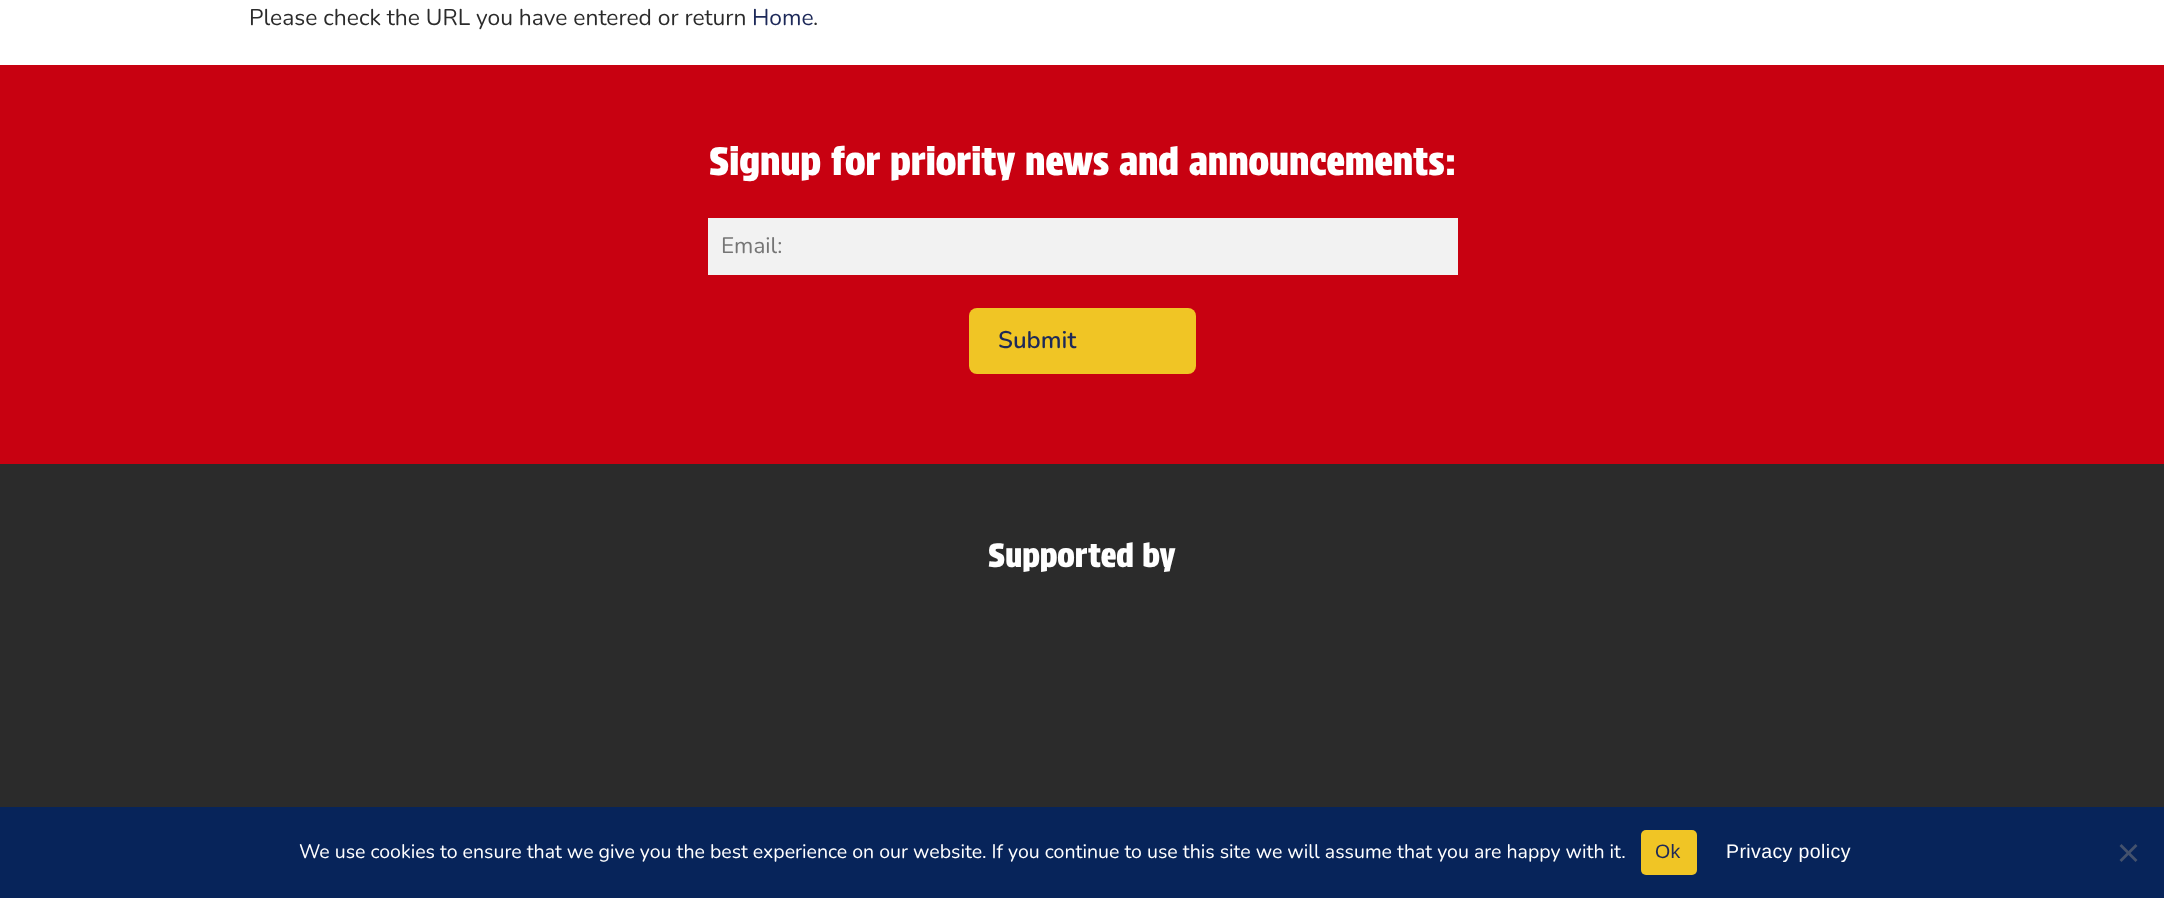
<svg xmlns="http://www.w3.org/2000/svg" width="2164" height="898">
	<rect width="100%" height="100%" fill="#FFFFFF" />
	<text x="249" y="25" font-family="Nunito" font-size="22.8" fill="#2B2B2B">Please check the URL you have entered or return</text>
	<text x="752" y="25" font-family="Nunito" font-size="22.8" fill="#1D2959">Home</text>
	<text x="813" y="25" font-family="Nunito" font-size="22.8" fill="#2B2B2B">.</text>
	<rect x="0" y="65" width="2164" height="399" fill="#C80111" />
	<text x="709" y="175" font-family="Protest Strike" font-size="38.5" fill="#FFFFFF">Signup for priority news and announcements:</text>
	<rect x="708" y="218" width="750" height="57" fill="#F2F2F2" />
	<text x="721" y="253" font-family="Nunito" font-size="22.5" fill="#757575">Email:</text>
	<rect x="969" y="308" width="227" height="66" rx="8" fill="#F0C525" />
	<text x="998" y="348" font-family="Nunito" font-size="24" font-weight="600" fill="#1D2959">Submit</text>
	<rect x="0" y="464" width="2164" height="343" fill="#2B2B2B" />
	<text x="988" y="567" font-family="Protest Strike" font-size="32.75" fill="#FFFFFF">Supported by</text>
	<rect x="0" y="807" width="2164" height="91" fill="#07245A" />
	<text x="299" y="858" font-family="Nunito" font-size="19.5" fill="#FFFFFF">We use cookies to ensure that we give you the best experience on our website. If you continue to use this site we will assume that you are happy with it.</text>
	<rect x="1641" y="830" width="56" height="45" rx="5" fill="#F0C525" />
	<text x="1655" y="858" font-family="Liberation Sans" font-size="19.5" letter-spacing="0.4" fill="#1D2959">Ok</text>
	<text x="1726" y="858" font-family="Liberation Sans" font-size="19.5" letter-spacing="0.4" fill="#FFFFFF">Privacy policy</text>
	<path d="M2135.5 844L2137.5 846L2121.5 862L2119.5 860Z" fill="#44526D" />
	<path d="M2119.5 846L2121.5 844L2137.5 860L2135.5 862Z" fill="#44526D" />
</svg>
